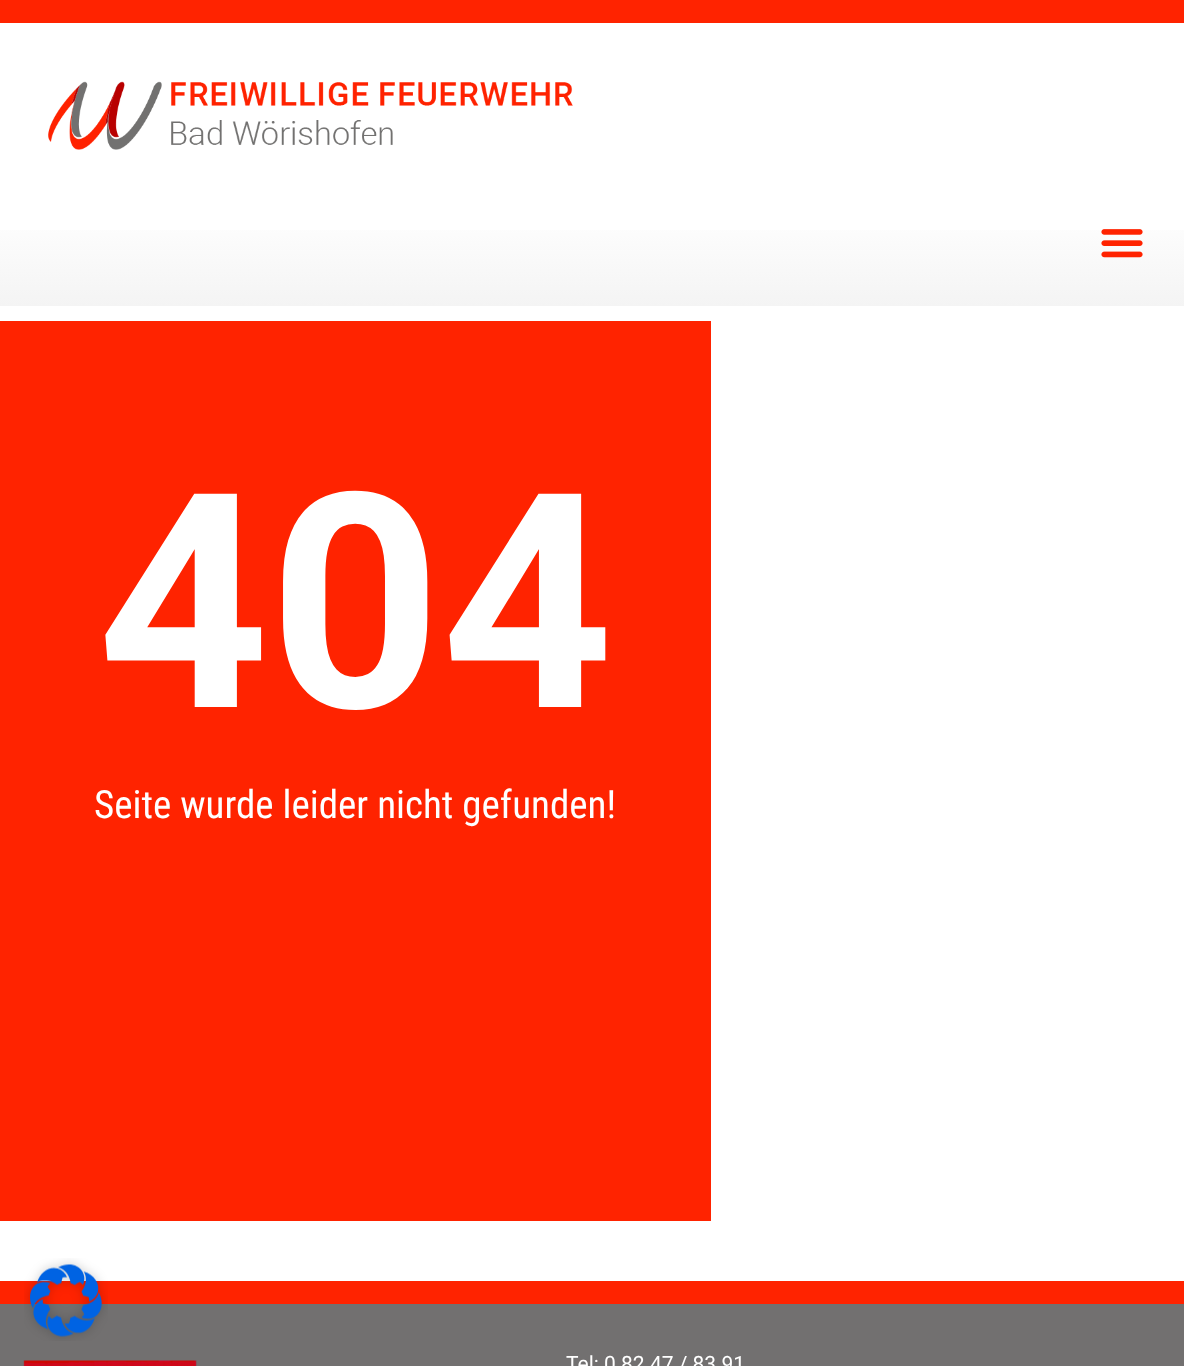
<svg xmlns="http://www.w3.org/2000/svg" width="1184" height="1366">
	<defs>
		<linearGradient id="g1" gradientUnits="userSpaceOnUse" x1="593" y1="208" x2="593" y2="306"><stop offset="0" stop-color="#FFFFFF" /><stop offset="1" stop-color="#F4F4F4" /></linearGradient>
	</defs>
	<rect width="100%" height="100%" fill="#FFFFFF" />
	<rect x="0" y="0" width="1184" height="23" fill="#FF2300" />
	<image x="48" y="81" width="525" height="69" href="assets/img1.png" />
	<rect x="0" y="230" width="1184" height="76" fill="url(#g1)" />
	<image x="1101" y="229" width="42" height="29" href="assets/img2.png" />
	<rect x="0" y="321" width="711" height="900" fill="#FF2300" />
	<text x="97" y="707" font-family="Roboto" font-size="300" font-weight="700" fill="#FFFFFF">404</text>
	<text x="94" y="818" font-family="Roboto Condensed" font-size="39" fill="#FFFFFF">Seite wurde leider nicht gefunden!</text>
	<rect x="0" y="1281" width="1184" height="23" fill="#FF2300" />
	<rect x="0" y="1304" width="1184" height="62" fill="#727070" />
	<image x="24" y="1258" width="84" height="83" href="assets/img3.png" />
	<image x="23" y="1360" width="174" height="6" href="assets/img4.png" />
	<text x="566" y="1371" font-family="Roboto" font-size="21" fill="#FFFFFF">Tel: 0 82 47 / 83 91</text>
</svg>
